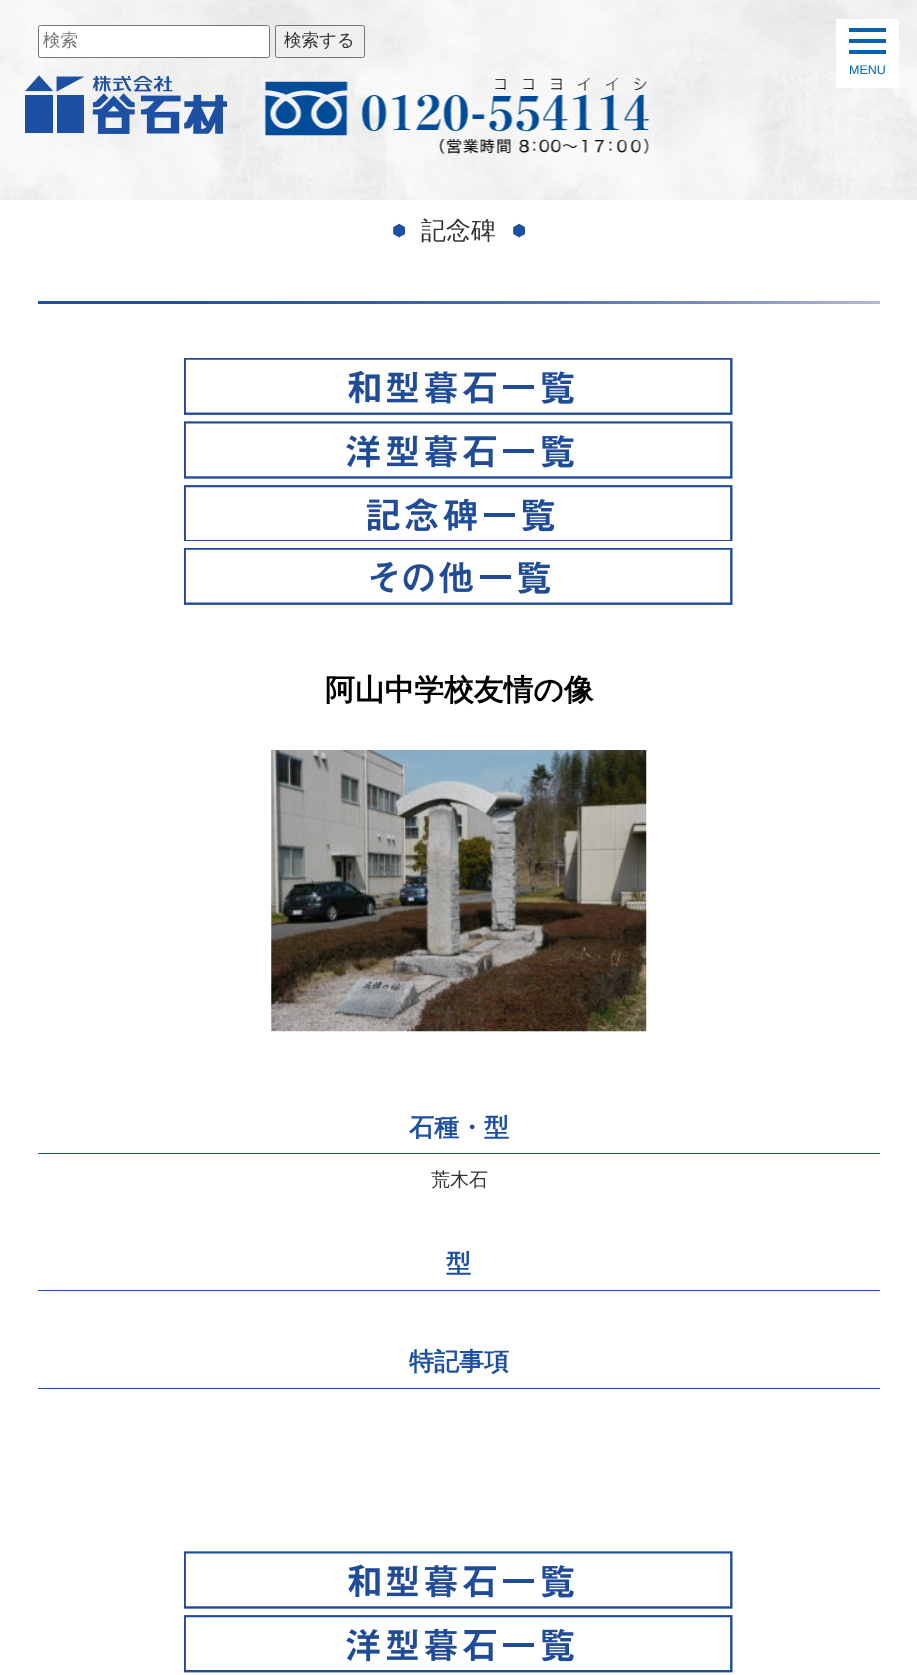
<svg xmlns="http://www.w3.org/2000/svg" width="917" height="1675">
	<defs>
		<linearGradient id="g1" gradientUnits="userSpaceOnUse" x1="38" y1="303" x2="880" y2="303"><stop offset="0" stop-color="#1D50A2" /><stop offset="0.18" stop-color="#2152A3" /><stop offset="0.34" stop-color="#2C5AA7" /><stop offset="0.49" stop-color="#3E67AE" /><stop offset="0.65" stop-color="#5978B7" /><stop offset="0.8" stop-color="#7A8FC3" /><stop offset="0.94" stop-color="#A3ABD2" /><stop offset="1" stop-color="#B5B7D8" /></linearGradient>
	</defs>
	<rect width="100%" height="100%" fill="#FFFFFF" />
	<image x="0" y="0" width="917" height="200" href="assets/img1.png" />
	<rect x="38.5" y="25.5" width="231" height="32" rx="2" fill="#FFFFFF" stroke="#767676" />
	<text x="43" y="46" font-family="WenQuanYi Zen Hei" font-size="17.5" font-weight="500" fill="#757575">検索</text>
	<rect x="275.5" y="25.5" width="89" height="32" rx="2" fill="#EFEFEF" stroke="#767676" />
	<text x="284" y="46" font-family="WenQuanYi Zen Hei" font-size="17.5" font-weight="500" fill="#333333">検索する</text>
	<image x="25" y="75" width="203" height="59" href="assets/img2.png" />
	<image x="264" y="77" width="386" height="77" href="assets/img3.png" />
	<rect x="836" y="19" width="63" height="69" fill="#FFFFFF" />
	<rect x="849" y="28" width="37" height="4" fill="#0064B2" />
	<rect x="849" y="39" width="37" height="4" fill="#0064B2" />
	<rect x="849" y="50" width="37" height="4" fill="#0064B2" />
	<text x="849" y="74" font-family="Liberation Sans" font-size="12.5" fill="#0064B2">MENU</text>
	<image x="393" y="223" width="12" height="15" href="assets/img4.png" />
	<text x="421" y="239" font-family="WenQuanYi Zen Hei" font-size="25" font-weight="500" fill="#333333">記念碑</text>
	<image x="513" y="223" width="12" height="15" href="assets/img4.png" />
	<rect x="38" y="301" width="842" height="3" fill="url(#g1)" />
	<image x="184" y="358" width="549" height="57" href="assets/img5.png" />
	<image x="184" y="421" width="549" height="58" href="assets/img6.png" />
	<image x="184" y="485" width="549" height="56" href="assets/img7.png" />
	<image x="184" y="548" width="549" height="57" href="assets/img8.png" />
	<text x="325" y="700" font-family="WenQuanYi Zen Hei" font-size="29.75" font-weight="700" fill="#000000">阿山中学校友情の像</text>
	<image x="271" y="750" width="376" height="282" href="assets/img9.png" />
	<rect x="38" y="1153" width="842" height="1" fill="#1D50A2" />
	<text x="409" y="1136" font-family="WenQuanYi Zen Hei" font-size="25" font-weight="700" fill="#1D50A2">石種・型</text>
	<text x="431" y="1186" font-family="WenQuanYi Zen Hei" font-size="19" font-weight="500" fill="#333333">荒木石</text>
	<rect x="38" y="1290" width="842" height="1" fill="#1D50A2" />
	<text x="446" y="1272" font-family="WenQuanYi Zen Hei" font-size="25" font-weight="700" fill="#1D50A2">型</text>
	<rect x="38" y="1388" width="842" height="1" fill="#1D50A2" />
	<text x="409" y="1370" font-family="WenQuanYi Zen Hei" font-size="25" font-weight="700" fill="#1D50A2">特記事項</text>
	<image x="184" y="1551" width="549" height="58" href="assets/img10.png" />
	<image x="184" y="1615" width="549" height="58" href="assets/img11.png" />
</svg>
